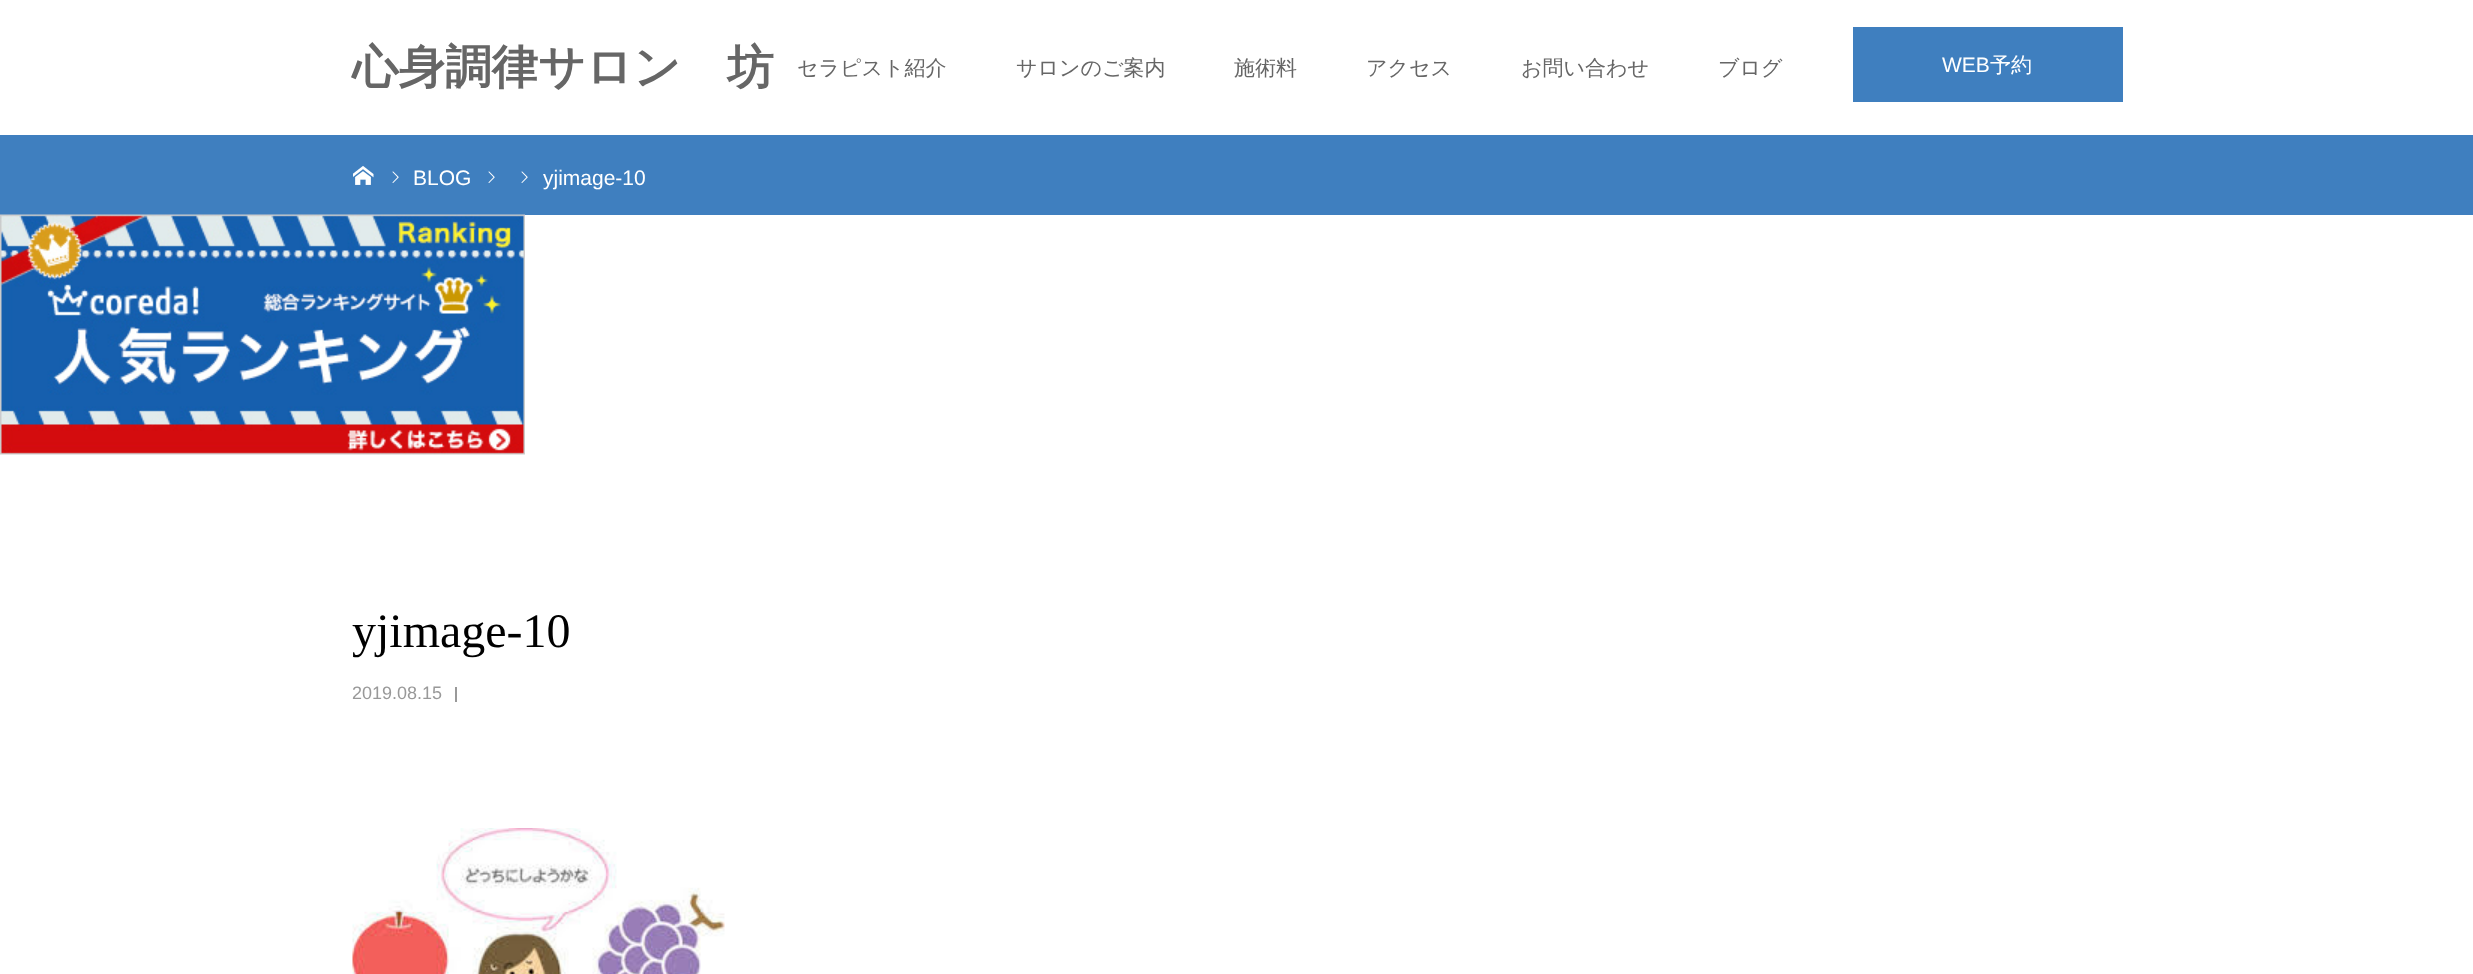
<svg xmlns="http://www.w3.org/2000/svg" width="2473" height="974">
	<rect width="100%" height="100%" fill="#FFFFFF" />
	<text x="352" y="83" font-family="WenQuanYi Zen Hei" font-size="46.5" font-weight="700" fill="#666666">心身調律サロン　坊</text>
	<g font-family="WenQuanYi Zen Hei" font-size="21" font-weight="500" fill="#666666">
		<text x="797" y="75">セラピスト紹介</text>
		<text x="1016" y="75">サロンのご案内</text>
		<text x="1234" y="75">施術料</text>
		<text x="1366" y="75">アクセス</text>
		<text x="1521" y="75">お問い合わせ</text>
		<text x="1718" y="75">ブログ</text>
	</g>
	<rect x="1853" y="27" width="270" height="75" fill="#3F7FBF" />
	<text x="1942" y="72" font-family="Liberation Sans" font-size="21" fill="#FFFFFF">WEB</text>
	<text x="1990" y="72" font-family="WenQuanYi Zen Hei" font-size="21" font-weight="500" fill="#FFFFFF">予約</text>
	<rect x="0" y="135" width="2473" height="80" fill="#3F7FBF" />
	<image x="353" y="166" width="21" height="19" href="assets/img1.png" />
	<image x="392" y="171" width="7" height="12" href="assets/img2.png" />
	<text x="413" y="185" font-family="Liberation Sans" font-size="21" fill="#FFFFFF">BLOG</text>
	<image x="488" y="171" width="7" height="12" href="assets/img2.png" />
	<image x="521" y="171" width="7" height="12" href="assets/img2.png" />
	<text x="543" y="185" font-family="Liberation Sans" font-size="21" fill="#FFFFFF">yjimage-10</text>
	<image x="0" y="214" width="525" height="241" href="assets/img3.png" />
	<text x="352" y="647" font-family="Liberation Serif" font-size="48" fill="#000000">yjimage-10</text>
	<text x="352" y="699" font-family="Liberation Sans" font-size="18" fill="#999999">2019.08.15</text>
	<rect x="455" y="687" width="2" height="15" fill="#999999" />
	<image x="352" y="828" width="373" height="146" href="assets/img4.png" />
</svg>
